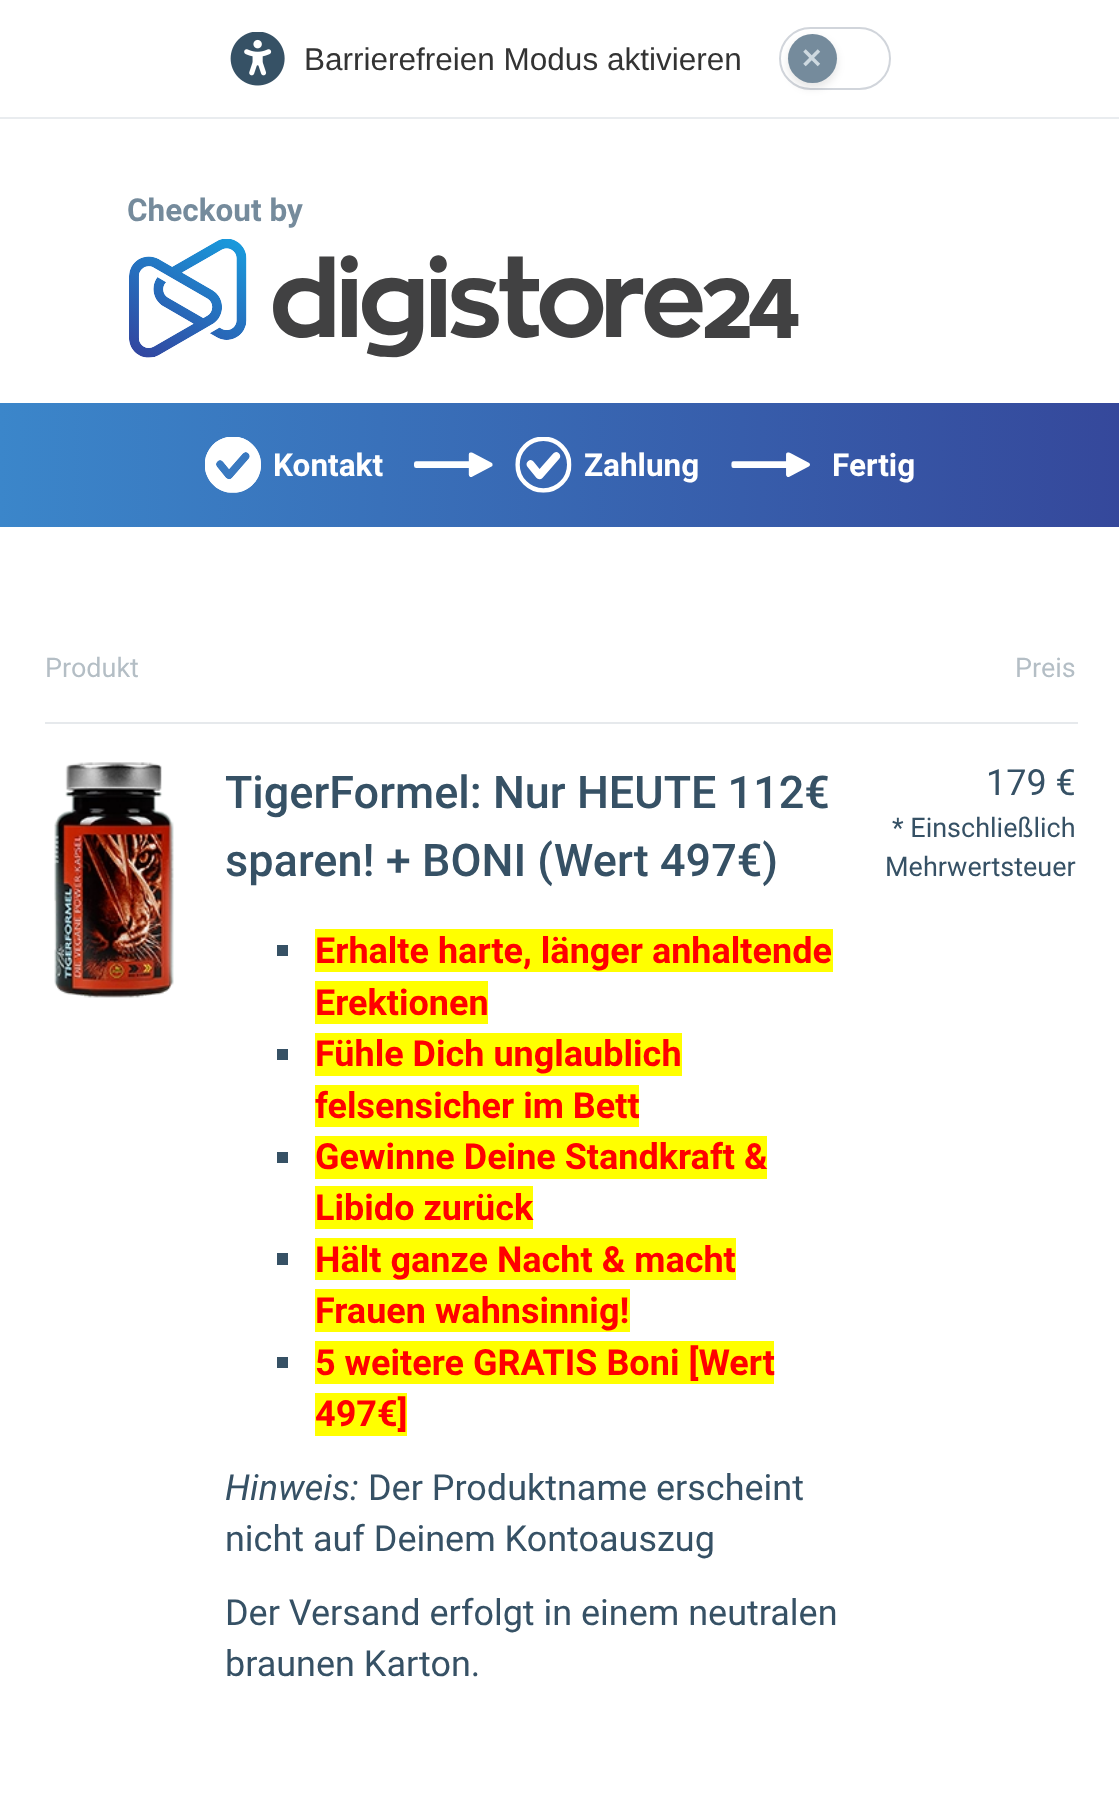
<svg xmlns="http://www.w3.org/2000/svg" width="1119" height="1802">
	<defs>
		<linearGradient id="g1" gradientUnits="userSpaceOnUse" x1="0" y1="465" x2="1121" y2="465"><stop offset="0" stop-color="#3B86CA" /><stop offset="1" stop-color="#35489B" /></linearGradient>
	</defs>
	<rect width="100%" height="100%" fill="#FFFFFF" />
	<rect x="0" y="117" width="1119" height="2" fill="#E9ECEF" />
	<image x="230" y="32" width="55" height="54" href="assets/img1.png" />
	<text x="304" y="70" font-family="Liberation Sans" font-size="31.5" fill="#333333">Barrierefreien Modus aktivieren</text>
	<rect x="780" y="28" width="110" height="61" rx="30.5" fill="none" stroke="#D1D5DB" stroke-width="2" />
	<rect x="788" y="38" width="49" height="50" rx="24.5" fill="#000000" fill-opacity="0.1" filter="blur(4.5px)" />
	<circle cx="812.5" cy="58.5" r="24.5" fill="#758B9C" />
	<text x="800" y="68" font-family="DejaVu Sans" font-size="27" font-weight="700" fill="#CED9E0">✕</text>
	<text x="127" y="221" font-family="Roboto" font-size="31.5" font-weight="700" fill="#758B9C">Checkout by</text>
	<image x="129" y="239" width="670" height="119" href="assets/img2.png" />
	<rect x="0" y="403" width="1119" height="124" fill="url(#g1)" />
	<image x="205" y="437" width="56" height="56" href="assets/img3.png" />
	<text x="273" y="476" font-family="Roboto" font-size="31.5" font-weight="700" fill="#FFFFFF">Kontakt</text>
	<image x="414" y="452" width="79" height="25" href="assets/img4.png" />
	<image x="515" y="437" width="57" height="56" href="assets/img5.png" />
	<text x="584" y="476" font-family="Roboto" font-size="31.5" font-weight="700" fill="#FFFFFF">Zahlung</text>
	<image x="731" y="452" width="79" height="25" href="assets/img6.png" />
	<text x="832" y="476" font-family="Roboto" font-size="31.5" font-weight="700" fill="#FFFFFF">Fertig</text>
	<text x="45" y="677" font-family="Roboto" font-size="27" fill="#B4BEC5">Produkt</text>
	<rect x="45" y="722" width="1033" height="2" fill="#E6E9EC" />
	<text x="1015" y="677" font-family="Roboto" font-size="27" fill="#B4BEC5">Preis</text>
	<image x="54" y="762" width="120" height="236" href="assets/img7.png" />
	<g font-family="Roboto" font-size="45" font-weight="500" fill="#365165">
		<text x="225" y="808">TigerFormel: Nur HEUTE 112€</text>
		<text x="225" y="876">sparen! + BONI (Wert 497€)</text>
	</g>
	<rect x="277" y="945" width="11" height="11" fill="#365165" />
	<rect x="315" y="929" width="518" height="43" fill="#FFFF00" />
	<text x="315" y="963" font-family="Roboto" font-size="36" font-weight="700" fill="#FF0000">Erhalte harte, länger anhaltende</text>
	<rect x="315" y="981" width="173" height="43" fill="#FFFF00" />
	<text x="315" y="1015" font-family="Roboto" font-size="36" font-weight="700" fill="#FF0000">Erektionen</text>
	<rect x="277" y="1049" width="11" height="11" fill="#365165" />
	<rect x="315" y="1033" width="367" height="43" fill="#FFFF00" />
	<text x="315" y="1066" font-family="Roboto" font-size="36" font-weight="700" fill="#FF0000">Fühle Dich unglaublich</text>
	<rect x="315" y="1085" width="324" height="42" fill="#FFFF00" />
	<text x="315" y="1118" font-family="Roboto" font-size="36" font-weight="700" fill="#FF0000">felsensicher im Bett</text>
	<rect x="277" y="1152" width="11" height="11" fill="#365165" />
	<rect x="315" y="1136" width="452" height="43" fill="#FFFF00" />
	<text x="315" y="1169" font-family="Roboto" font-size="36" font-weight="700" fill="#FF0000">Gewinne Deine Standkraft &amp;</text>
	<rect x="315" y="1186" width="218" height="43" fill="#FFFF00" />
	<text x="315" y="1220" font-family="Roboto" font-size="36" font-weight="700" fill="#FF0000">Libido zurück</text>
	<rect x="277" y="1253" width="11" height="12" fill="#365165" />
	<rect x="315" y="1238" width="421" height="42" fill="#FFFF00" />
	<text x="315" y="1272" font-family="Roboto" font-size="36" font-weight="700" fill="#FF0000">Hält ganze Nacht &amp; macht</text>
	<rect x="315" y="1289" width="315" height="43" fill="#FFFF00" />
	<text x="315" y="1323" font-family="Roboto" font-size="36" font-weight="700" fill="#FF0000">Frauen wahnsinnig!</text>
	<rect x="277" y="1357" width="11" height="11" fill="#365165" />
	<rect x="315" y="1341" width="459" height="43" fill="#FFFF00" />
	<text x="315" y="1375" font-family="Roboto" font-size="36" font-weight="700" fill="#FF0000">5 weitere GRATIS Boni [Wert</text>
	<rect x="315" y="1393" width="92" height="43" fill="#FFFF00" />
	<text x="315" y="1426" font-family="Roboto" font-size="36" font-weight="700" fill="#FF0000">497€]</text>
	<text x="225" y="1500" font-family="Roboto" font-size="36" font-style="italic" fill="#365165">Hinweis:</text>
	<g font-family="Roboto" font-size="36" fill="#365165">
		<text x="368" y="1500">Der Produktname erscheint</text>
		<text x="225" y="1551">nicht auf Deinem Kontoauszug</text>
		<text x="225" y="1625">Der Versand erfolgt in einem neutralen</text>
		<text x="225" y="1676">braunen Karton.</text>
		<text x="986" y="795">179 €</text>
	</g>
	<g font-family="Roboto" font-size="27" fill="#365165">
		<text x="892" y="837">* Einschließlich</text>
		<text x="885" y="876">Mehrwertsteuer</text>
	</g>
</svg>
